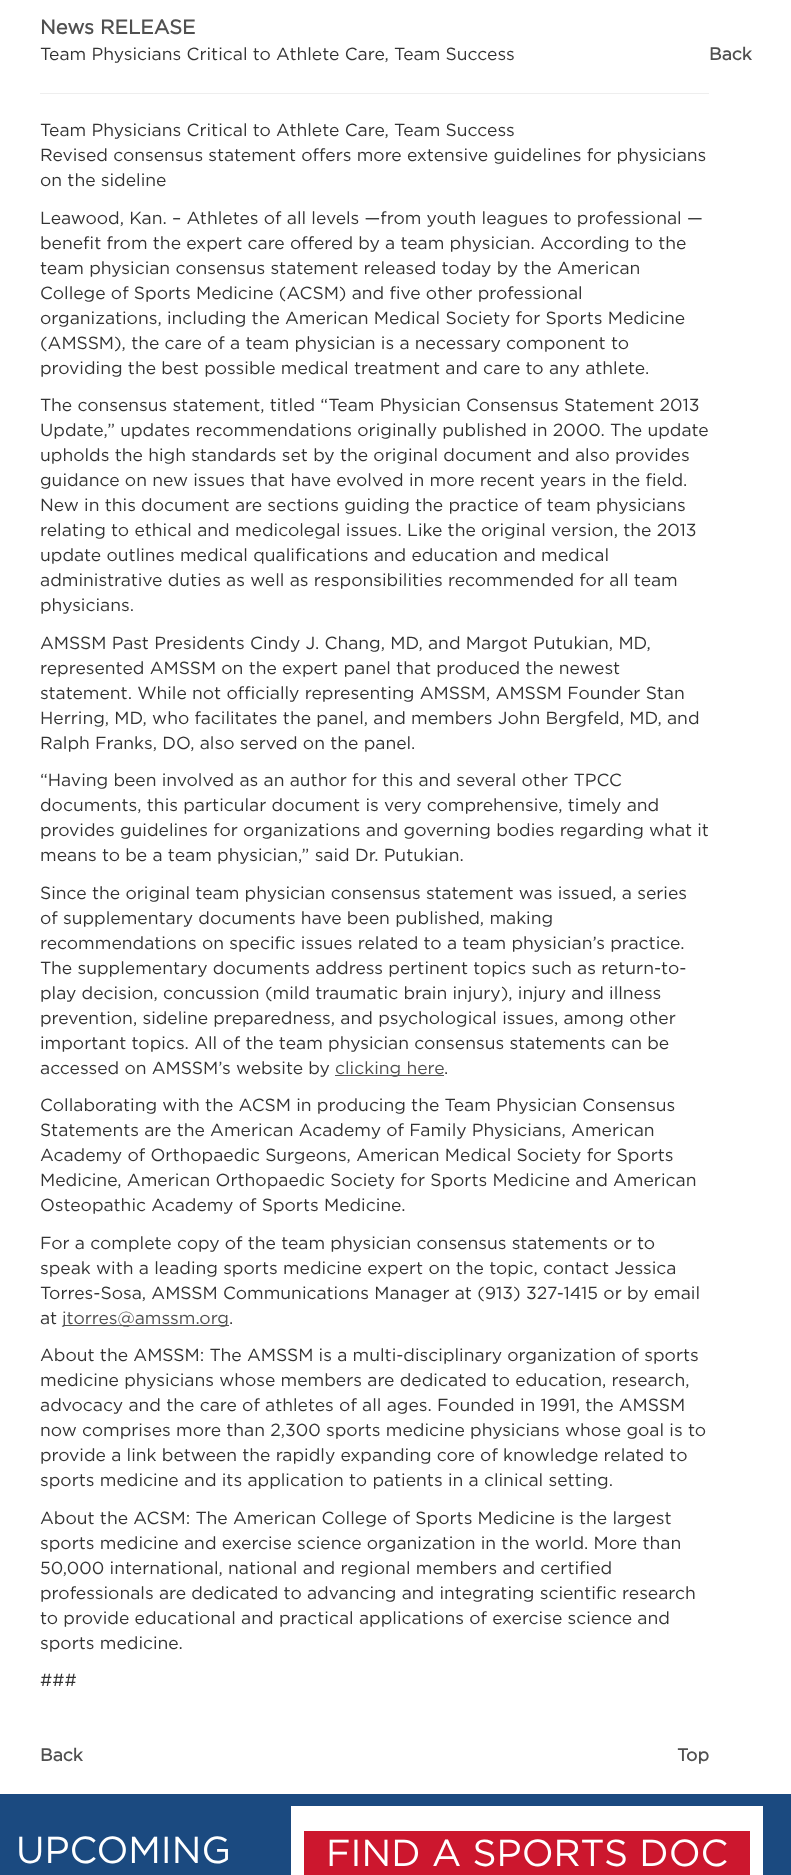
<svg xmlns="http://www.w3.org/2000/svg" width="791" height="1875">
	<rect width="100%" height="100%" fill="#FFFFFF" />
	<text x="40" y="34" font-family="Gotham" font-size="20" font-weight="700" fill="#505050">News RELEASE</text>
	<text x="40" y="60" font-family="Gotham" font-size="17.5" fill="#333333">Team Physicians Critical to Athlete Care, Team Success</text>
	<rect x="40" y="93" width="669" height="1" fill="#EEEEEE" />
	<text x="709" y="60" font-family="Gotham" font-size="17.5" font-weight="700" fill="#505050">Back</text>
	<g font-family="Gotham" font-size="17.5" fill="#333333">
		<text x="40" y="136">Team Physicians Critical to Athlete Care, Team Success</text>
		<text x="40" y="161">Revised consensus statement offers more extensive guidelines for physicians</text>
		<text x="40" y="186">on the sideline</text>
		<text x="40" y="224">Leawood, Kan. – Athletes of all levels —from youth leagues to professional —</text>
		<text x="40" y="249">benefit from the expert care offered by a team physician. According to the</text>
		<text x="40" y="274">team physician consensus statement released today by the American</text>
		<text x="40" y="299">College of Sports Medicine (ACSM) and five other professional</text>
		<text x="40" y="324">organizations, including the American Medical Society for Sports Medicine</text>
		<text x="40" y="349">(AMSSM), the care of a team physician is a necessary component to</text>
		<text x="40" y="374">providing the best possible medical treatment and care to any athlete.</text>
		<text x="40" y="411">The consensus statement, titled “Team Physician Consensus Statement 2013</text>
		<text x="40" y="436">Update,” updates recommendations originally published in 2000. The update</text>
		<text x="40" y="461">upholds the high standards set by the original document and also provides</text>
		<text x="40" y="486">guidance on new issues that have evolved in more recent years in the field.</text>
		<text x="40" y="511">New in this document are sections guiding the practice of team physicians</text>
		<text x="40" y="536">relating to ethical and medicolegal issues. Like the original version, the 2013</text>
		<text x="40" y="561">update outlines medical qualifications and education and medical</text>
		<text x="40" y="586">administrative duties as well as responsibilities recommended for all team</text>
		<text x="40" y="611">physicians.</text>
		<text x="40" y="649">AMSSM Past Presidents Cindy J. Chang, MD, and Margot Putukian, MD,</text>
		<text x="40" y="674">represented AMSSM on the expert panel that produced the newest</text>
		<text x="40" y="699">statement. While not officially representing AMSSM, AMSSM Founder Stan</text>
		<text x="40" y="724">Herring, MD, who facilitates the panel, and members John Bergfeld, MD, and</text>
		<text x="40" y="749">Ralph Franks, DO, also served on the panel.</text>
		<text x="40" y="786">“Having been involved as an author for this and several other TPCC</text>
		<text x="40" y="811">documents, this particular document is very comprehensive, timely and</text>
		<text x="40" y="836">provides guidelines for organizations and governing bodies regarding what it</text>
		<text x="40" y="861">means to be a team physician,” said Dr. Putukian.</text>
		<text x="40" y="899">Since the original team physician consensus statement was issued, a series</text>
		<text x="40" y="924">of supplementary documents have been published, making</text>
		<text x="40" y="949">recommendations on specific issues related to a team physician’s practice.</text>
		<text x="40" y="974">The supplementary documents address pertinent topics such as return-to-</text>
		<text x="40" y="999">play decision, concussion (mild traumatic brain injury), injury and illness</text>
		<text x="40" y="1024">prevention, sideline preparedness, and psychological issues, among other</text>
		<text x="40" y="1049">important topics. All of the team physician consensus statements can be</text>
		<text x="40" y="1074">accessed on AMSSM’s website by</text>
	</g>
	<rect x="335" y="1075" width="109" height="1" fill="#505050" />
	<text x="335" y="1074" font-family="Gotham" font-size="17.5" fill="#505050">clicking here</text>
	<g font-family="Gotham" font-size="17.5" fill="#333333">
		<text x="444" y="1074">.</text>
		<text x="40" y="1111">Collaborating with the ACSM in producing the Team Physician Consensus</text>
		<text x="40" y="1136">Statements are the American Academy of Family Physicians, American</text>
		<text x="40" y="1161">Academy of Orthopaedic Surgeons, American Medical Society for Sports</text>
		<text x="40" y="1186">Medicine, American Orthopaedic Society for Sports Medicine and American</text>
		<text x="40" y="1211">Osteopathic Academy of Sports Medicine.</text>
		<text x="40" y="1249">For a complete copy of the team physician consensus statements or to</text>
		<text x="40" y="1274">speak with a leading sports medicine expert on the topic, contact Jessica</text>
		<text x="40" y="1299">Torres-Sosa, AMSSM Communications Manager at (913) 327-1415 or by email</text>
		<text x="40" y="1324">at</text>
	</g>
	<rect x="63" y="1325" width="166" height="1" fill="#505050" />
	<text x="62" y="1324" font-family="Gotham" font-size="17.5" fill="#505050">jtorres@amssm.org</text>
	<g font-family="Gotham" font-size="17.5" fill="#333333">
		<text x="229" y="1324">.</text>
		<text x="40" y="1361">About the AMSSM: The AMSSM is a multi-disciplinary organization of sports</text>
		<text x="40" y="1386">medicine physicians whose members are dedicated to education, research,</text>
		<text x="40" y="1411">advocacy and the care of athletes of all ages. Founded in 1991, the AMSSM</text>
		<text x="40" y="1436">now comprises more than 2,300 sports medicine physicians whose goal is to</text>
		<text x="40" y="1461">provide a link between the rapidly expanding core of knowledge related to</text>
		<text x="40" y="1486">sports medicine and its application to patients in a clinical setting.</text>
		<text x="40" y="1524">About the ACSM: The American College of Sports Medicine is the largest</text>
		<text x="40" y="1549">sports medicine and exercise science organization in the world. More than</text>
		<text x="40" y="1574">50,000 international, national and regional members and certified</text>
		<text x="40" y="1599">professionals are dedicated to advancing and integrating scientific research</text>
		<text x="40" y="1624">to provide educational and practical applications of exercise science and</text>
		<text x="40" y="1649">sports medicine.</text>
		<text x="40" y="1686">###</text>
	</g>
	<g font-family="Gotham" font-size="17.5" font-weight="700" fill="#505050">
		<text x="40" y="1761">Back</text>
		<text x="677" y="1761">Top</text>
	</g>
	<rect x="0" y="1794" width="791" height="81" fill="#1B4A80" />
	<text x="16" y="1863" font-family="Gotham" font-size="37.5" fill="#FFFFFF">UPCOMING</text>
	<rect x="291" y="1806" width="472" height="69" fill="#FFFFFF" />
	<rect x="304" y="1831" width="446" height="44" fill="#CC172E" />
	<text x="326" y="1866" font-family="Gotham" font-size="37.5" fill="#FFFFFF">FIND A SPORTS DOC</text>
</svg>
